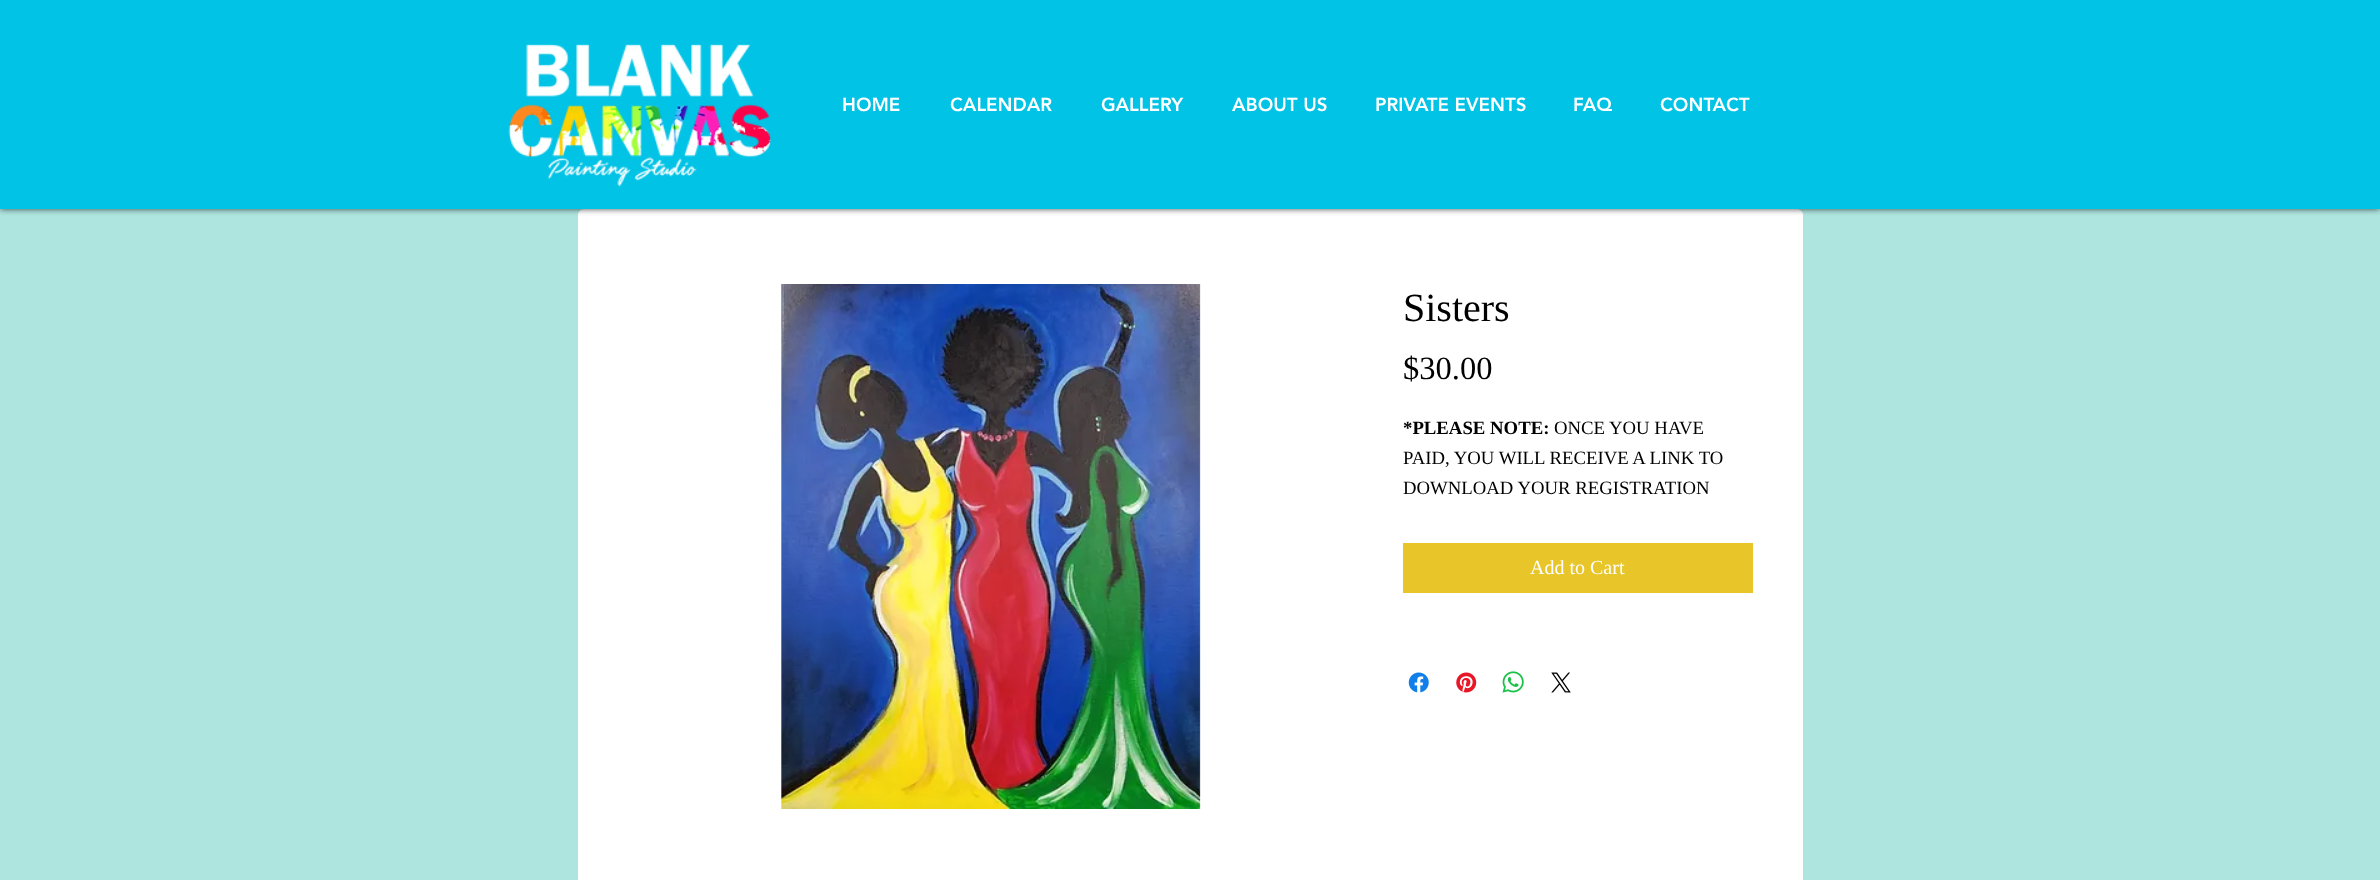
<svg xmlns="http://www.w3.org/2000/svg" width="2380" height="880">
	<rect width="100%" height="100%" fill="#AFE5DF" />
	<rect x="578.5" y="209.5" width="1224" height="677" rx="5.5" fill="#FFFFFF" stroke="#FFFFFF" />
	<rect x="0" y="0" width="2380" height="209" fill="#000000" fill-opacity="0.7" filter="blur(3px)" />
	<rect x="0" y="0" width="2380" height="209" fill="#00C3E6" />
	<image x="547" y="157" width="150" height="30" href="assets/img2.png" />
	<image x="508" y="44" width="264" height="114" href="assets/img1.png" />
	<g font-family="'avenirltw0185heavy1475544'" font-size="18.75" font-weight="900" fill="#FFFFFF">
		<text x="842" y="111">HOME</text>
		<text x="950" y="111">CALENDAR</text>
		<text x="1101" y="111">GALLERY</text>
		<text x="1232" y="111">ABOUT US</text>
		<text x="1375" y="111">PRIVATE EVENTS</text>
		<text x="1573" y="111">FAQ</text>
		<text x="1660" y="111">CONTACT</text>
	</g>
	<image x="781" y="284" width="420" height="525" href="assets/img3.png" />
	<text x="1403" y="321" font-family="Liberation Serif" font-size="40" fill="#000000">Sisters</text>
	<text x="1403" y="379" font-family="Liberation Serif" font-size="32.5" fill="#000000">$30.00</text>
	<text x="1403" y="434" font-family="Liberation Serif" font-size="18.75" font-weight="700" fill="#000000">*PLEASE NOTE:</text>
	<g font-family="Liberation Serif" font-size="18.75" fill="#000000">
		<text x="1554" y="434">ONCE YOU HAVE</text>
		<text x="1403" y="464">PAID, YOU WILL RECEIVE A LINK TO</text>
		<text x="1403" y="494">DOWNLOAD YOUR REGISTRATION</text>
	</g>
	<rect x="1403" y="543" width="350" height="50" fill="#E8C529" />
	<text x="1530" y="574" font-family="Liberation Serif" font-size="20" fill="#FFFFFF">Add to Cart</text>
	<image x="1408" y="672" width="21" height="21" href="assets/img4.png" />
	<image x="1456" y="672" width="21" height="21" href="assets/img5.png" />
	<image x="1502" y="671" width="22" height="22" href="assets/img6.png" />
	<image x="1551" y="672" width="20" height="21" href="assets/img7.png" />
</svg>
